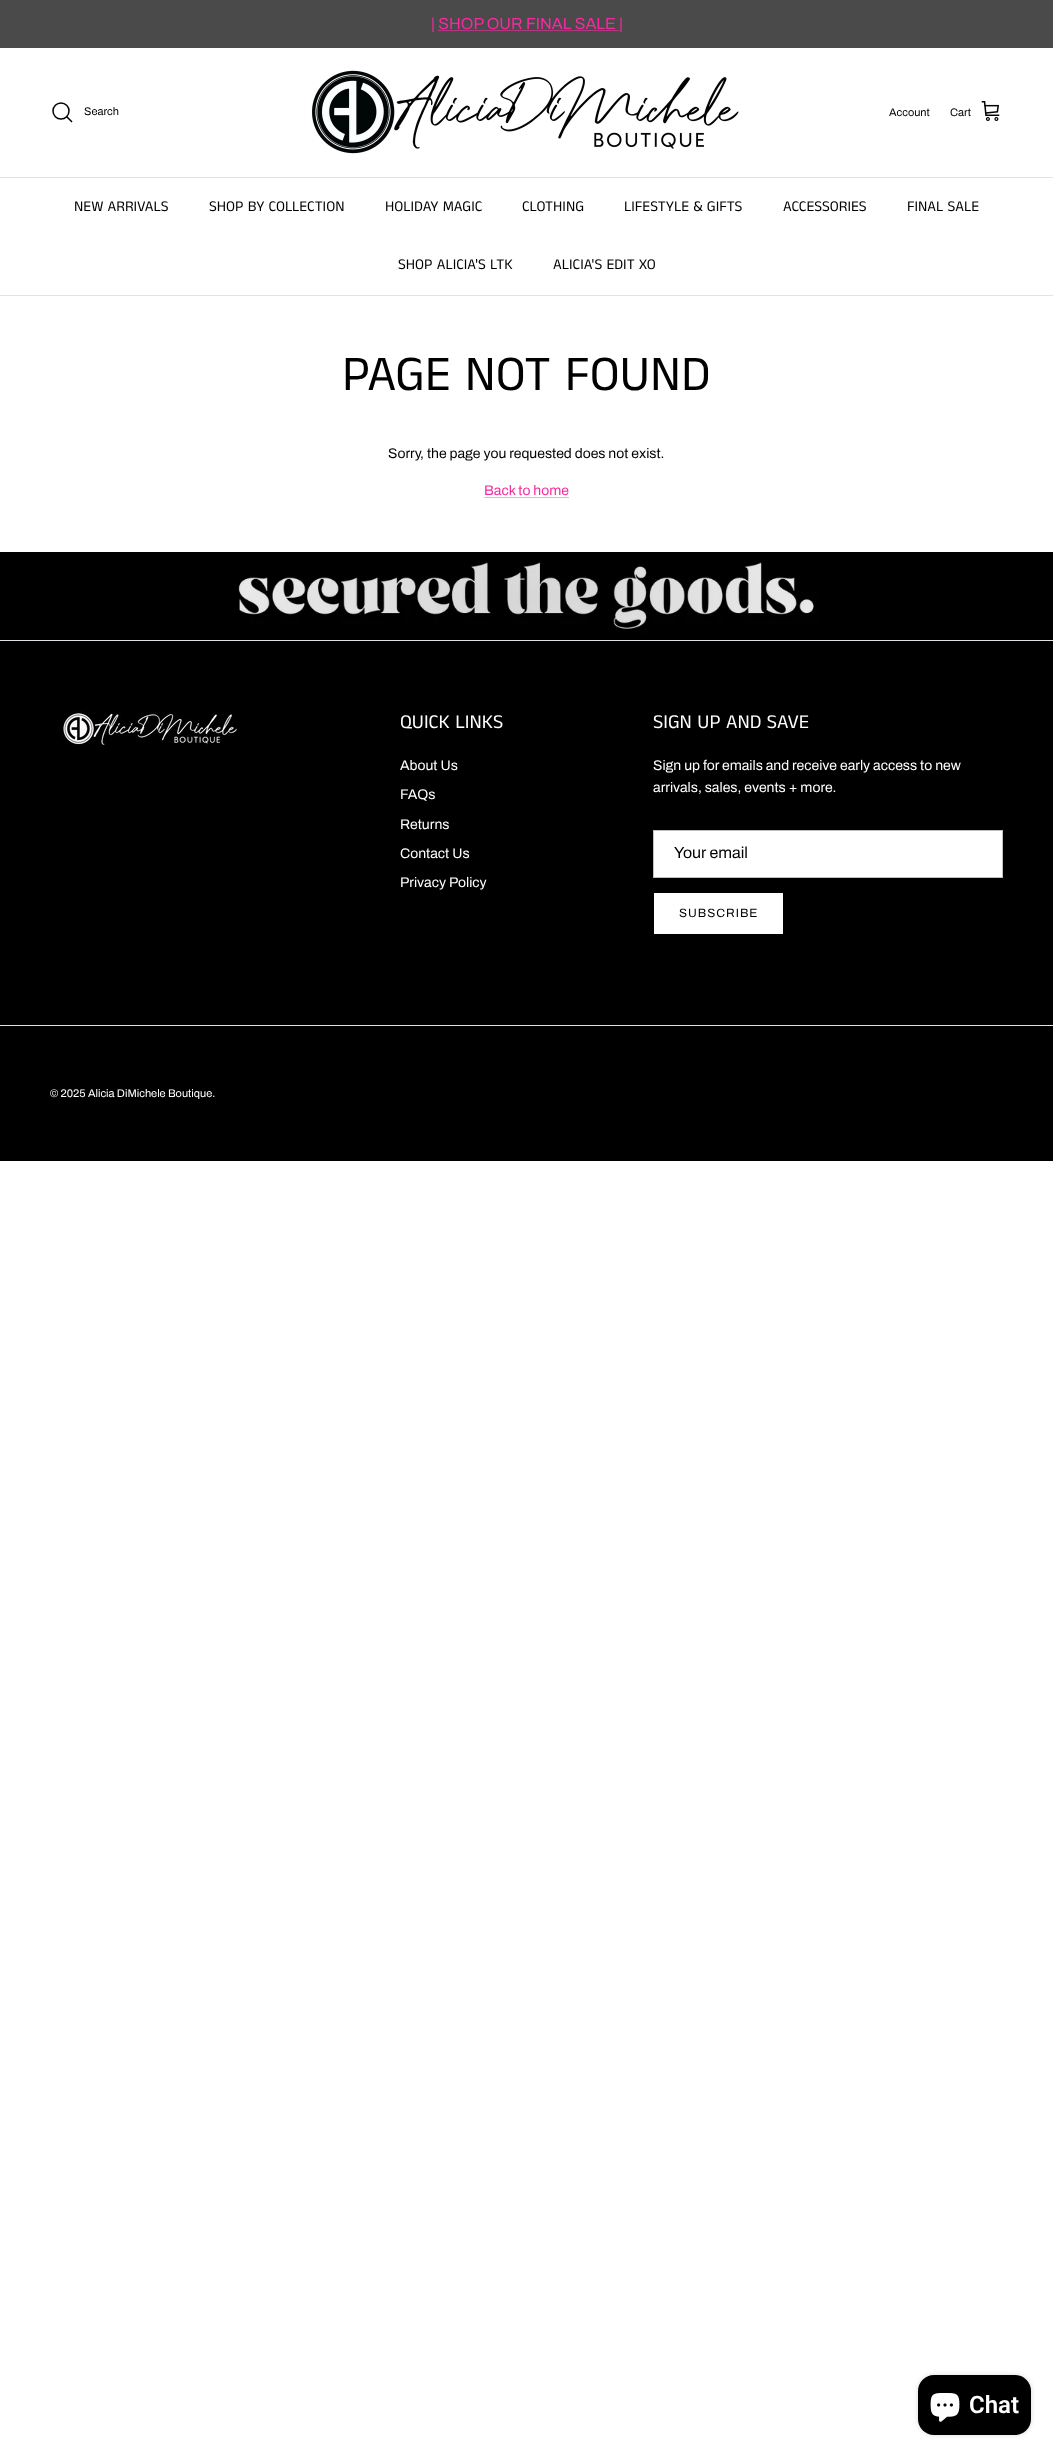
<svg xmlns="http://www.w3.org/2000/svg" width="1053" height="2456">
	<rect width="100%" height="100%" fill="#FFFFFF" />
	<rect x="0" y="0" width="1053" height="48" fill="#4A4A4A" />
	<text x="431" y="29" font-family="Archivo" font-size="16" fill="#F62AA0">| SHOP OUR FINAL SALE |</text>
	<rect x="438" y="30" width="181" height="1" fill="#B1377E" />
	<rect x="0" y="177" width="1053" height="1" fill="#DFE3E8" />
	<circle cx="61" cy="111" r="8" fill="none" stroke="#000000" stroke-width="1.5" />
	<text x="84" y="115" font-family="Archivo" font-size="11" fill="#000000">Search</text>
	<path d="M67 117L71.5 121.5" fill="none" stroke="#000000" stroke-width="1.5" stroke-linecap="square" />
	<image x="311" y="70" width="428" height="84" href="assets/img1.png" />
	<g font-family="Archivo" font-size="11" fill="#000000">
		<text x="889" y="116">Account</text>
		<text x="950" y="116">Cart</text>
	</g>
	<image x="981" y="101" width="19" height="20" href="assets/img2.png" />
	<rect x="0" y="295" width="1053" height="1" fill="#DFE3E8" />
	<g font-family="Anek Tamil" font-size="15" fill="#000000">
		<text x="74" y="211">NEW ARRIVALS</text>
		<text x="209" y="211">SHOP BY COLLECTION</text>
		<text x="385" y="211">HOLIDAY MAGIC</text>
		<text x="522" y="211">CLOTHING</text>
		<text x="624" y="211">LIFESTYLE &amp; GIFTS</text>
		<text x="783" y="211">ACCESSORIES</text>
		<text x="907" y="211">FINAL SALE</text>
		<text x="398" y="269">SHOP ALICIA'S LTK</text>
		<text x="553" y="269">ALICIA'S EDIT XO</text>
	</g>
	<text x="342" y="390" font-family="Anek Tamil" font-size="50" fill="#000000">PAGE NOT FOUND</text>
	<text x="388" y="458" font-family="Archivo" font-size="14" fill="#000000">Sorry, the page you requested does not exist.</text>
	<text x="484" y="495" font-family="Archivo" font-size="14" fill="#F62AA0">Back to home</text>
	<rect x="484" y="497" width="85" height="1" fill="#FBAAD9" />
	<image x="0" y="552" width="1053" height="88" href="assets/img3.png" />
	<rect x="0" y="641" width="1053" height="520" fill="#000000" />
	<rect x="0" y="640" width="1053" height="1" fill="#DFE3E8" />
	<image x="62" y="711" width="176" height="35" href="assets/img4.png" />
	<text x="400" y="728" font-family="Anek Tamil" font-size="19.75" fill="#FFFFFF">QUICK LINKS</text>
	<g font-family="Archivo" font-size="14" fill="#FFFFFF">
		<text x="400" y="770">About Us</text>
		<text x="400" y="799">FAQs</text>
		<text x="400" y="829">Returns</text>
		<text x="400" y="858">Contact Us</text>
		<text x="400" y="887">Privacy Policy</text>
	</g>
	<text x="653" y="728" font-family="Anek Tamil" font-size="19.75" fill="#FFFFFF">SIGN UP AND SAVE</text>
	<g font-family="Archivo" font-size="14" fill="#FFFFFF">
		<text x="653" y="770">Sign up for emails and receive early access to new</text>
		<text x="653" y="792">arrivals, sales, events + more.</text>
	</g>
	<rect x="653.5" y="830.5" width="349" height="47" fill="#FFFFFF" stroke="#BFBFBF" />
	<text x="674" y="858" font-family="Archivo" font-size="16" fill="#000000">Your email</text>
	<rect x="654" y="893" width="129" height="41" fill="#FFFFFF" />
	<text x="679" y="917" font-family="Archivo" font-size="12" letter-spacing="1" fill="#000000">SUBSCRIBE</text>
	<rect x="0" y="1025" width="1053" height="1" fill="#DFE3E8" />
	<text x="50" y="1097" font-family="Archivo" font-size="11" fill="#FFFFFF">© 2025 Alicia DiMichele Boutique.</text>
	<rect x="918" y="2375" width="113" height="60" rx="16" fill="#000000" fill-opacity="0.15" filter="blur(2.5px)" />
	<rect x="918" y="2375" width="113" height="60" rx="16" fill="#000000" />
	<image x="930" y="2393" width="30" height="29" href="assets/img5.png" />
	<text x="969" y="2413" font-family="Roboto" font-size="24" font-weight="600" fill="#FFFFFF">Chat</text>
</svg>
